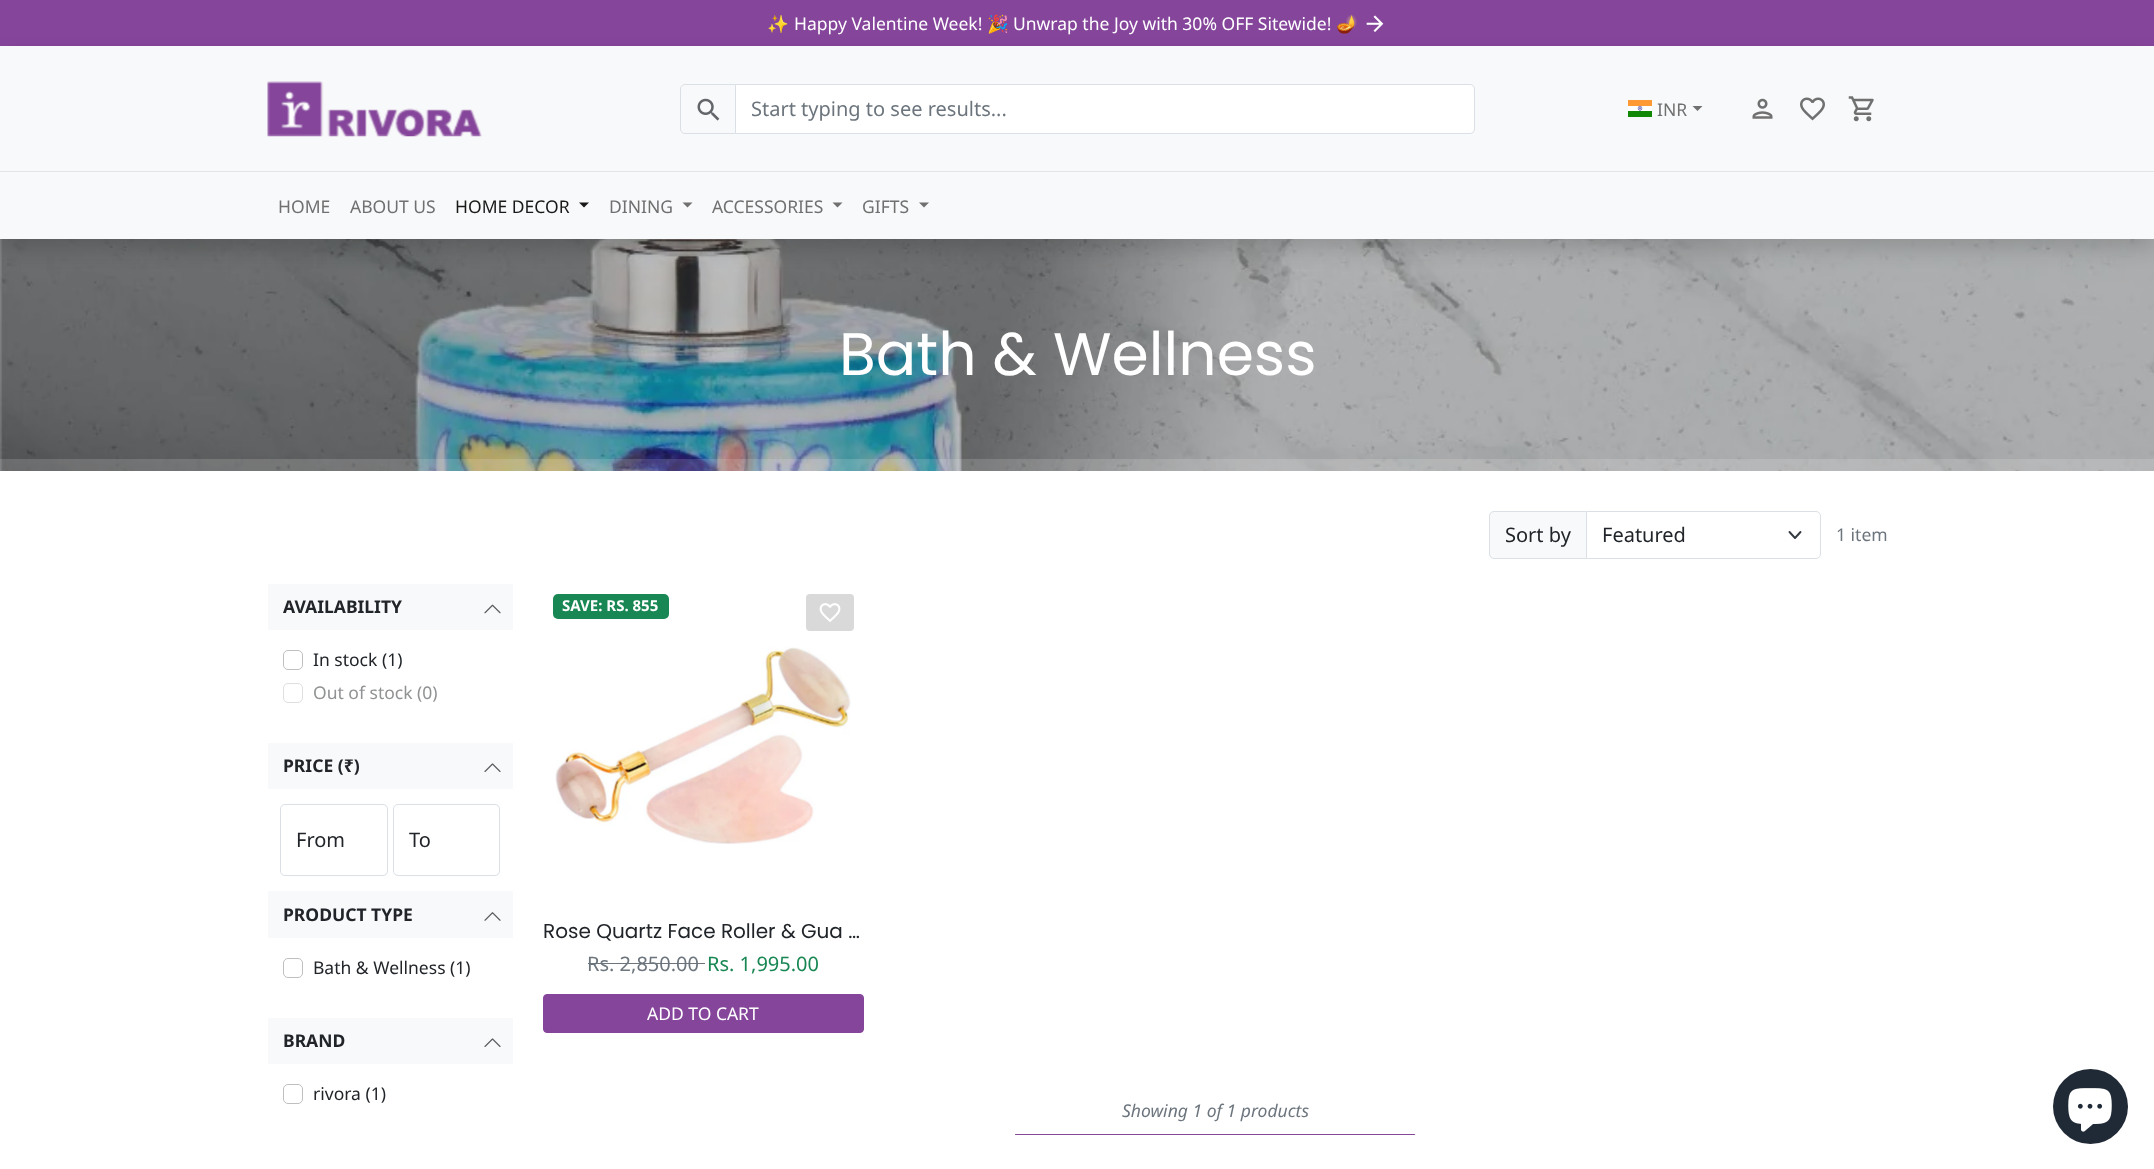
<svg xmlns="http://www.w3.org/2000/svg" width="2154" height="1169">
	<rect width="100%" height="100%" fill="#FFFFFF" />
	<rect x="0" y="0" width="2154" height="46" fill="#85459B" />
	<text x="767" y="30" font-family="Noto Color Emoji" font-size="17.5" fill="#FFFFFF">✨</text>
	<text x="794" y="30" font-family="Noto Sans" font-size="17.5" fill="#FFFFFF">Happy Valentine Week!</text>
	<text x="987" y="30" font-family="Noto Color Emoji" font-size="17.5" fill="#FFFFFF">🎉</text>
	<text x="1013" y="30" font-family="Noto Sans" font-size="17.5" fill="#FFFFFF">Unwrap the Joy with 30% OFF Sitewide!</text>
	<text x="1336" y="30" font-family="Noto Color Emoji" font-size="17.5" fill="#FFFFFF">🪔</text>
	<image x="1366" y="15" width="18" height="17" href="assets/img1.png" />
	<rect x="0" y="239" width="2154" height="232" fill="#212529" />
	<image x="0" y="239" width="2154" height="232" href="assets/img8.png" />
	<rect x="0" y="56" width="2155" height="193" fill="#000000" fill-opacity="0.15" filter="blur(10px)" />
	<rect x="0" y="46" width="2154" height="193" fill="#F8F9FA" />
	<image x="267" y="81" width="215" height="56" href="assets/img2.png" />
	<path d="M685 84.5H735.5V133.5H685C682.5 133.5 680.5 131.5 680.5 129V89C680.5 86.5 682.5 84.5 685 84.5Z" fill="none" stroke="#DAE0E5" />
	<image x="697" y="98" width="23" height="23" href="assets/img3.png" />
	<path d="M735.5 84.5H1470C1472.5 84.5 1474.5 86.5 1474.5 89V129C1474.5 131.5 1472.5 133.5 1470 133.5H735.5Z" fill="#FFFFFF" stroke="#DAE0E5" />
	<text x="751" y="116" font-family="Noto Sans" font-size="20" fill="#6C757D">Start typing to see results...</text>
	<image x="1628" y="100" width="24" height="17" href="assets/img4.png" />
	<text x="1657" y="116" font-family="Noto Sans" font-size="17.5" fill="#707071">INR</text>
	<path d="M1692.5 106H1702.5L1697.5 111Z" fill="#707071" />
	<image x="1752" y="98" width="21" height="21" href="assets/img5.png" />
	<image x="1800" y="97" width="25" height="24" href="assets/img6.png" />
	<image x="1848" y="96" width="26" height="26" href="assets/img7.png" />
	<rect x="0" y="171" width="2154" height="1" fill="#E3E4E5" />
	<g font-family="Noto Sans" font-size="17.5" fill="#707071">
		<text x="278" y="213">HOME</text>
		<text x="350" y="213">ABOUT US</text>
	</g>
	<text x="455" y="213" font-family="Noto Sans" font-size="17.5" fill="#191919">HOME DECOR</text>
	<path d="M579 202.5H589L584 207.5Z" fill="#191919" />
	<text x="609" y="213" font-family="Noto Sans" font-size="17.5" fill="#707071">DINING</text>
	<path d="M682.5 202.5H692.5L687.5 207.5Z" fill="#707071" />
	<text x="712" y="213" font-family="Noto Sans" font-size="17.5" fill="#707071">ACCESSORIES</text>
	<path d="M832.5 202.5H842.5L837.5 207.5Z" fill="#707071" />
	<text x="862" y="213" font-family="Noto Sans" font-size="17.5" fill="#707071">GIFTS</text>
	<path d="M919 202.5H929L924 207.5Z" fill="#707071" />
	<text x="839" y="375" font-family="Poppins" font-size="60" fill="#FFFFFF">Bath &amp; Wellness</text>
	<rect x="0" y="459" width="2154" height="12" fill="#FFFFFF" fill-opacity="0.15" />
	<path d="M1494 511.5H1587.5V558.5H1494C1491.5 558.5 1489.5 556.5 1489.5 554V516C1489.5 513.5 1491.5 511.5 1494 511.5Z" fill="#F8F9FA" stroke="#DAE0E5" />
	<text x="1505" y="542" font-family="Noto Sans" font-size="20" fill="#212529">Sort by</text>
	<path d="M1586 511H1816C1819 511 1821 513 1821 516V554C1821 557 1819 559 1816 559H1586Z" fill="#FFFFFF" />
	<path d="M1789.5 532L1795 538L1800.5 532" fill="none" stroke="#343A40" stroke-width="1.9" stroke-linecap="round" stroke-linejoin="round" />
	<path d="M1586.5 511.5H1816C1818.5 511.5 1820.5 513.5 1820.5 516V554C1820.5 556.5 1818.5 558.5 1816 558.5H1586.5Z" fill="none" stroke="#DAE0E5" />
	<text x="1602" y="542" font-family="Noto Sans" font-size="20" fill="#212529">Featured</text>
	<text x="1836" y="541" font-family="Noto Sans" font-size="17.5" fill="#6C757D">1 item</text>
	<rect x="268" y="584" width="245" height="46" fill="#F8F9FA" />
	<text x="283" y="613" font-family="Noto Sans" font-size="17.5" font-weight="700" fill="#212529">AVAILABILITY</text>
	<image x="484" y="604" width="17" height="10" href="assets/img9.png" />
	<rect x="283.5" y="650.5" width="19" height="19" rx="4.5" fill="none" stroke="#BFBFBF" />
	<text x="313" y="666" font-family="Noto Sans" font-size="17.5" fill="#212529">In stock (1)</text>
	<rect x="283.5" y="683.5" width="19" height="19" rx="4.5" fill="none" stroke="#DFDFDF" />
	<text x="313" y="699" font-family="Noto Sans" font-size="17.5" fill="#909294">Out of stock (0)</text>
	<rect x="268" y="743" width="245" height="46" fill="#F8F9FA" />
	<text x="283" y="772" font-family="Noto Sans" font-size="17.5" font-weight="700" fill="#212529">PRICE (₹)</text>
	<image x="484" y="763" width="17" height="9" href="assets/img10.png" />
	<rect x="280.5" y="804.5" width="107" height="71" rx="4.5" fill="none" stroke="#DAE0E5" />
	<text x="296" y="847" font-family="Noto Sans" font-size="20" fill="#212529">From</text>
	<rect x="393.5" y="804.5" width="106" height="71" rx="4.5" fill="none" stroke="#DAE0E5" />
	<text x="409" y="847" font-family="Noto Sans" font-size="20" fill="#212529">To</text>
	<rect x="268" y="891" width="245" height="47" fill="#F8F9FA" />
	<text x="283" y="921" font-family="Noto Sans" font-size="17.5" font-weight="700" fill="#212529">PRODUCT TYPE</text>
	<image x="484" y="912" width="17" height="9" href="assets/img11.png" />
	<rect x="283.5" y="958.5" width="19" height="19" rx="4.5" fill="none" stroke="#BFBFBF" />
	<text x="313" y="974" font-family="Noto Sans" font-size="17.5" fill="#212529">Bath &amp; Wellness (1)</text>
	<rect x="268" y="1018" width="245" height="46" fill="#F8F9FA" />
	<text x="283" y="1047" font-family="Noto Sans" font-size="17.5" font-weight="700" fill="#212529">BRAND</text>
	<image x="484" y="1038" width="17" height="9" href="assets/img10.png" />
	<rect x="283.5" y="1084.5" width="19" height="19" rx="4.5" fill="none" stroke="#BFBFBF" />
	<text x="313" y="1100" font-family="Noto Sans" font-size="17.5" fill="#212529">rivora (1)</text>
	<rect x="553" y="594" width="116" height="25" rx="5" fill="#198754" />
	<text x="562" y="611" font-family="Noto Sans" font-size="15" font-weight="700" fill="#FFFFFF">SAVE: RS. 855</text>
	<rect x="806" y="594" width="48" height="37" rx="4" fill="#D9D9D9" />
	<image x="819" y="603" width="22" height="19" href="assets/img12.png" />
	<image x="555" y="647" width="296" height="197" href="assets/img13.png" />
	<text x="543" y="938" font-family="Poppins" font-size="20" fill="#212529">Rose Quartz Face Roller &amp; Gua …</text>
	<text x="587" y="971" font-family="Noto Sans" font-size="20" fill="#6C757D">Rs. 2,850.00</text>
	<rect x="588" y="963" width="117" height="1" fill="#6C757D" />
	<text x="707" y="971" font-family="Noto Sans" font-size="20" fill="#198754">Rs. 1,995.00</text>
	<rect x="543.5" y="994.5" width="320" height="38" rx="3.5" fill="#85459B" stroke="#85459B" />
	<text x="647" y="1020" font-family="Noto Sans" font-size="17.5" fill="#FFFFFF">ADD TO CART</text>
	<text x="1122" y="1117" font-family="Noto Sans" font-size="17.5" font-style="italic" fill="#6C757D">Showing 1 of 1 products</text>
	<rect x="1015" y="1134" width="400" height="1" rx="0.5" fill="#85459B" />
	<circle cx="2090.5" cy="1106.5" r="37.5" fill="#202A36" />
	<image x="2068" y="1088" width="44" height="44" href="assets/img14.png" />
</svg>
